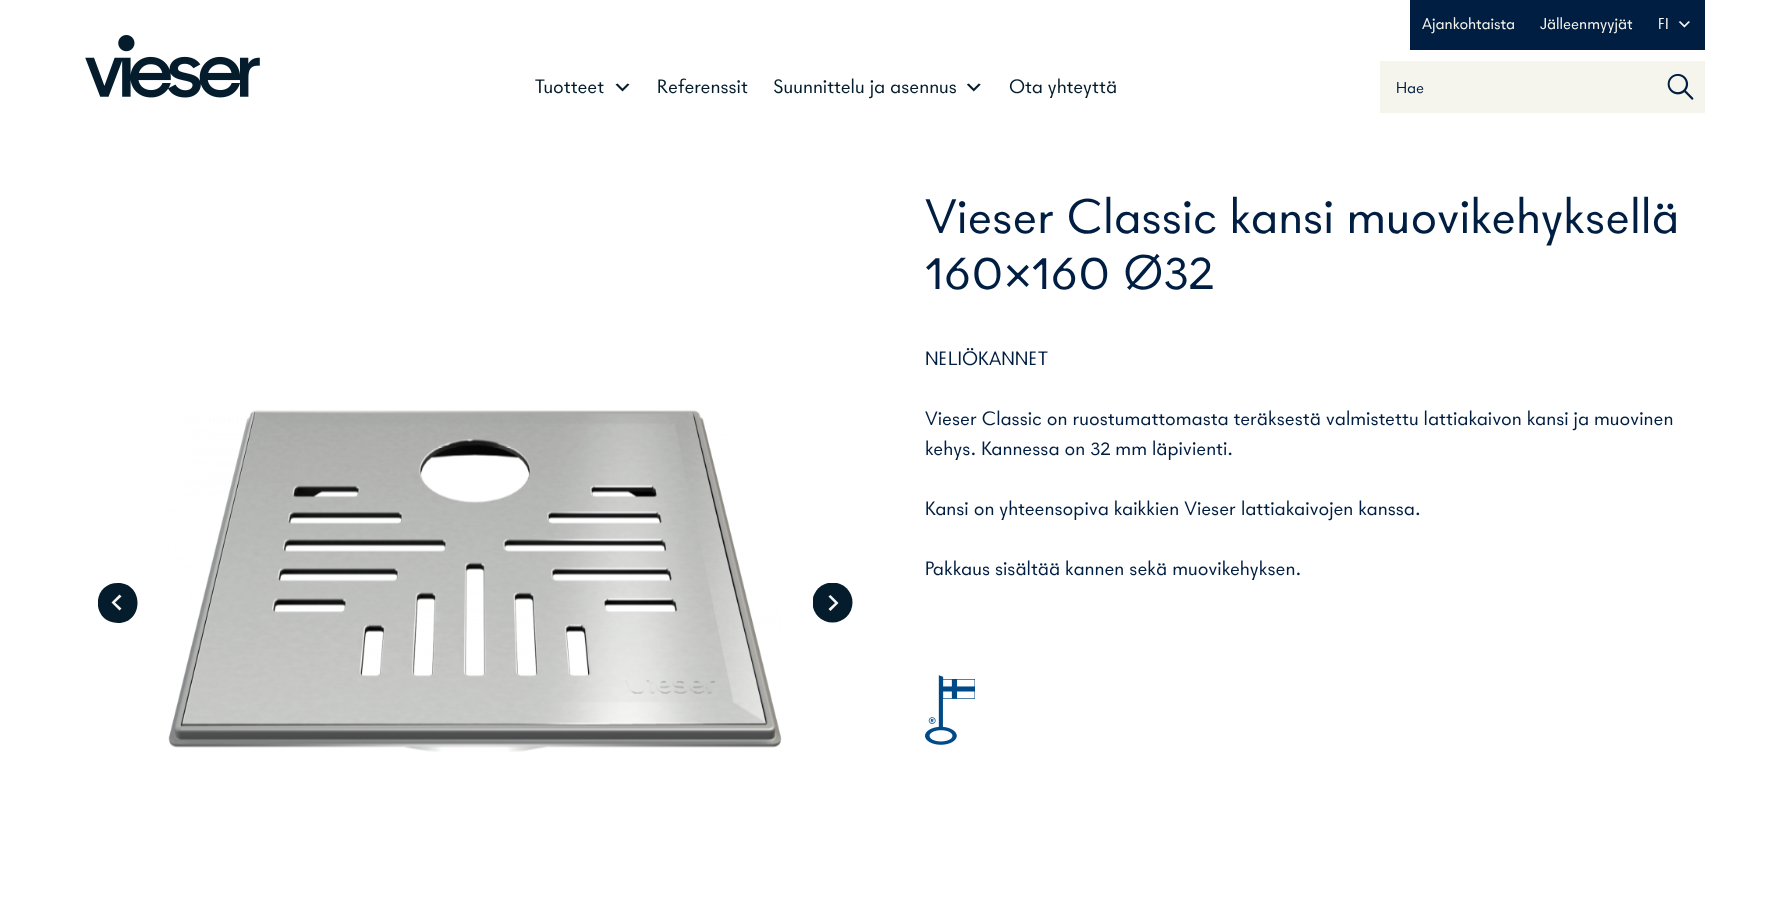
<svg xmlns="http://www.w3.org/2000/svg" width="1789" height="917">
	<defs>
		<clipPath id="clip1"><rect x="98" y="583" width="40" height="40" /></clipPath>
		<clipPath id="clip2"><rect x="813" y="583" width="40" height="40" /></clipPath>
	</defs>
	<rect width="100%" height="100%" fill="#FFFFFF" />
	<rect x="1410" y="0" width="295" height="50" fill="#001E42" />
	<g font-family="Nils" font-size="16.25" fill="#F6F5ED">
		<text x="1422" y="29">Ajankohtaista</text>
		<text x="1540" y="29">Jälleenmyyjät</text>
		<text x="1658" y="29">FI</text>
	</g>
	<image x="1678" y="21" width="12" height="7" href="assets/img1.png" />
	<image x="85" y="35" width="175" height="63" href="assets/img2.png" />
	<text x="535" y="93" font-family="Nils" font-size="20" fill="#041C2C">Tuotteet</text>
	<image x="615" y="83" width="15" height="9" href="assets/img3.png" />
	<g font-family="Nils" font-size="20" fill="#041C2C">
		<text x="657" y="93">Referenssit</text>
		<text x="773" y="93">Suunnittelu ja asennus</text>
	</g>
	<image x="966" y="83" width="15" height="9" href="assets/img4.png" />
	<text x="1009" y="93" font-family="Nils" font-size="20" fill="#041C2C">Ota yhteyttä</text>
	<rect x="1380" y="61" width="275" height="52" fill="#F6F5ED" />
	<text x="1396" y="93" font-family="Nils" font-size="16.25" fill="#001E42">Hae</text>
	<image x="1655" y="61" width="50" height="52" href="assets/img5.png" />
	<image x="168" y="410" width="614" height="342" href="assets/img6.png" />
	<g clip-path="url(#clip1)">
		<path d="M118 623C91 623 91 583 118 583C144 583 144 623 118 623Z" fill="#041C2C" />
	</g>
	<path d="M121.5 608.5L119.5 610.5L111.5 602.5L119.5 594.5L121.5 596.5L115 602.5Z" fill="#F8F7F5" />
	<g clip-path="url(#clip2)">
		<circle cx="832.5" cy="602.5" r="20" fill="#041C2C" />
	</g>
	<path d="M828.5 596.5L830.5 595L838.5 603L830.5 611L828.5 609L835 603Z" fill="#F8F7F5" />
	<g font-family="Nils" font-size="50" fill="#001E42">
		<text x="925" y="233">Vieser Classic kansi muovikehyksellä</text>
		<text x="925" y="289">160×160 Ø32</text>
	</g>
	<g font-family="Nils" font-size="20" fill="#001E42">
		<text x="925" y="365">NELIÖKANNET</text>
		<text x="925" y="425">Vieser Classic on ruostumattomasta teräksestä valmistettu lattiakaivon kansi ja muovinen</text>
		<text x="925" y="455">kehys. Kannessa on 32 mm läpivienti.</text>
		<text x="925" y="515">Kansi on yhteensopiva kaikkien Vieser lattiakaivojen kanssa.</text>
		<text x="925" y="575">Pakkaus sisältää kannen sekä muovikehyksen.</text>
	</g>
	<image x="925" y="675" width="50" height="70" href="assets/img7.png" />
</svg>
